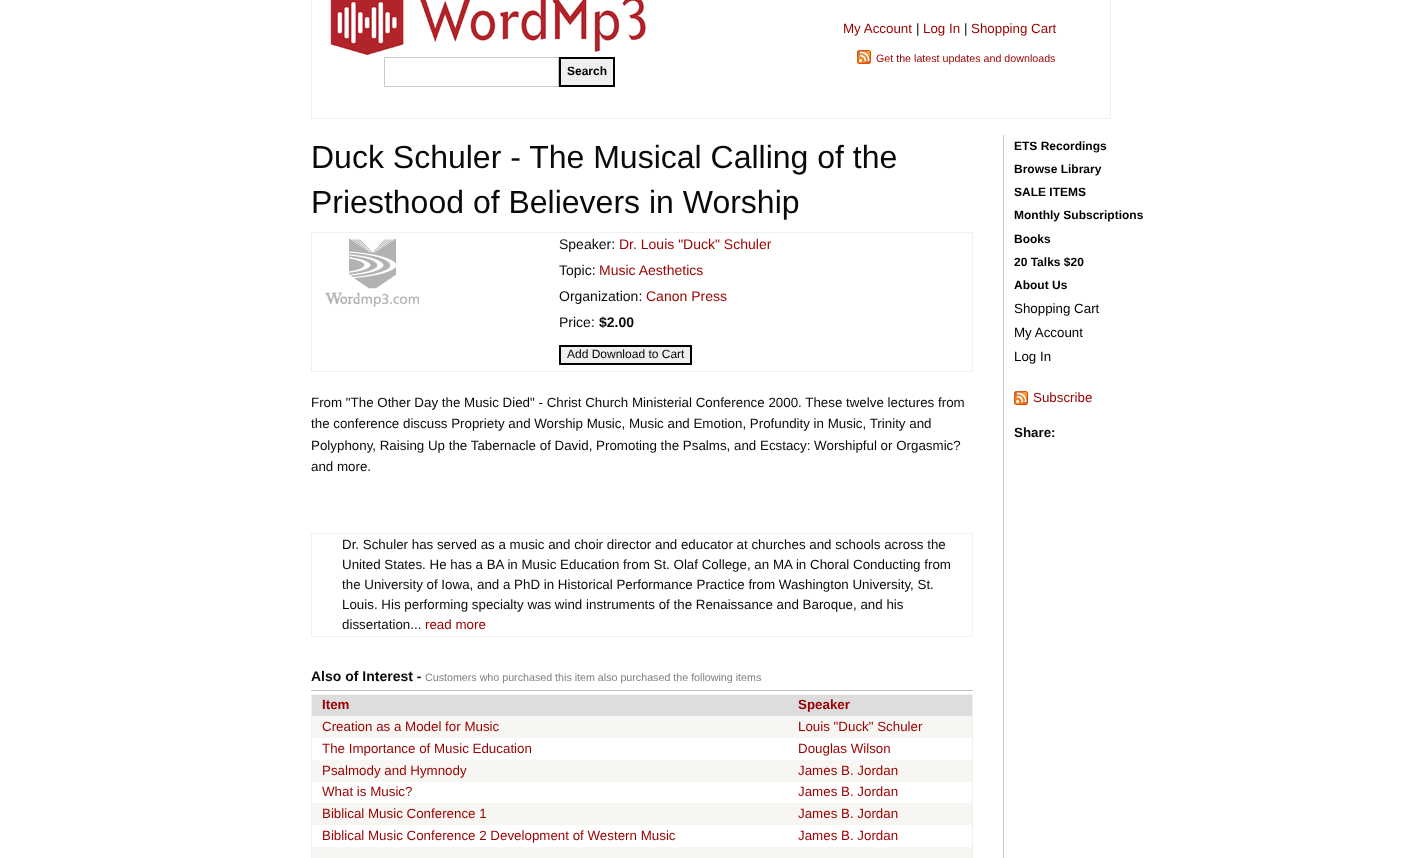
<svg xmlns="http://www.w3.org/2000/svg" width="1422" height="858">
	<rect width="100%" height="100%" fill="#FFFFFF" />
	<rect x="1110" y="0" width="1" height="119" fill="#F1F1F1" />
	<rect x="311" y="118" width="800" height="1" fill="#F1F1F1" />
	<rect x="311" y="0" width="1" height="119" fill="#F1F1F1" />
	<text x="843" y="33" font-family="Liberation Sans" font-size="13.35" fill="#990000">My Account</text>
	<text x="916" y="33" font-family="Liberation Sans" font-size="13.35" fill="#0A0A0A">|</text>
	<text x="923" y="33" font-family="Liberation Sans" font-size="13.35" fill="#990000">Log In</text>
	<text x="964" y="33" font-family="Liberation Sans" font-size="13.35" fill="#0A0A0A">|</text>
	<text x="971" y="33" font-family="Liberation Sans" font-size="13.35" fill="#990000">Shopping Cart</text>
	<image x="857" y="50" width="14" height="14" href="assets/img1.png" />
	<text x="876" y="62" font-family="Liberation Sans" font-size="10.7" fill="#990000">Get the latest updates and downloads</text>
	<image x="330" y="0" width="316" height="55" href="assets/img2.png" />
	<rect x="384.5" y="57.5" width="174" height="29" fill="none" stroke="#CACACA" />
	<rect x="560" y="58" width="54" height="28" fill="#EFEFEF" stroke="#000000" stroke-width="2" />
	<text x="567" y="75" font-family="Liberation Sans" font-size="12" font-weight="700" fill="#000000">Search</text>
	<g font-family="Liberation Sans" font-size="32" fill="#0A0A0A">
		<text x="311" y="168">Duck Schuler - The Musical Calling of the</text>
		<text x="311" y="213">Priesthood of Believers in Worship</text>
	</g>
	<rect x="311" y="232" width="662" height="1" fill="#F1F1F1" />
	<rect x="972" y="232" width="1" height="140" fill="#F1F1F1" />
	<rect x="311" y="371" width="662" height="1" fill="#F1F1F1" />
	<rect x="311" y="232" width="1" height="140" fill="#F1F1F1" />
	<image x="325" y="239" width="94" height="68" href="assets/img3.png" />
	<text x="559" y="249" font-family="Liberation Sans" font-size="14" fill="#0A0A0A">Speaker:</text>
	<text x="619" y="249" font-family="Liberation Sans" font-size="14" fill="#990000">Dr. Louis "Duck" Schuler</text>
	<text x="559" y="275" font-family="Liberation Sans" font-size="14" fill="#0A0A0A">Topic:</text>
	<text x="599" y="275" font-family="Liberation Sans" font-size="14" fill="#990000">Music Aesthetics</text>
	<text x="559" y="301" font-family="Liberation Sans" font-size="14" fill="#0A0A0A">Organization:</text>
	<text x="646" y="301" font-family="Liberation Sans" font-size="14" fill="#990000">Canon Press</text>
	<text x="559" y="327" font-family="Liberation Sans" font-size="14" fill="#0A0A0A">Price:</text>
	<text x="599" y="327" font-family="Liberation Sans" font-size="14" font-weight="700" fill="#0A0A0A">$2.00</text>
	<rect x="560" y="346" width="131" height="18" fill="#EFEFEF" stroke="#000000" stroke-width="2" />
	<text x="567" y="358" font-family="Liberation Sans" font-size="12" fill="#000000">Add Download to Cart</text>
	<g font-family="Liberation Sans" font-size="13.35" fill="#0A0A0A">
		<text x="311" y="407">From "The Other Day the Music Died" - Christ Church Ministerial Conference 2000. These twelve lectures from</text>
		<text x="311" y="428">the conference discuss Propriety and Worship Music, Music and Emotion, Profundity in Music, Trinity and</text>
		<text x="311" y="450">Polyphony, Raising Up the Tabernacle of David, Promoting the Psalms, and Ecstacy: Worshipful or Orgasmic?</text>
		<text x="311" y="471">and more.</text>
	</g>
	<rect x="311" y="533" width="662" height="1" fill="#F1F1F1" />
	<rect x="972" y="533" width="1" height="104" fill="#F1F1F1" />
	<rect x="311" y="636" width="662" height="1" fill="#F1F1F1" />
	<rect x="311" y="533" width="1" height="104" fill="#F1F1F1" />
	<g font-family="Liberation Sans" font-size="13.35" fill="#0A0A0A">
		<text x="342" y="549">Dr. Schuler has served as a music and choir director and educator at churches and schools across the</text>
		<text x="342" y="569">United States. He has a BA in Music Education from St. Olaf College, an MA in Choral Conducting from</text>
		<text x="342" y="589">the University of Iowa, and a PhD in Historical Performance Practice from Washington University, St.</text>
		<text x="342" y="609">Louis. His performing specialty was wind instruments of the Renaissance and Baroque, and his</text>
		<text x="342" y="629">dissertation...</text>
	</g>
	<text x="425" y="629" font-family="Liberation Sans" font-size="13.35" fill="#990000">read more</text>
	<rect x="311" y="690" width="662" height="1" fill="#C0C0C0" />
	<text x="311" y="681" font-family="Liberation Sans" font-size="14" font-weight="700" fill="#0A0A0A">Also of Interest -</text>
	<text x="425" y="681" font-family="Liberation Sans" font-size="10.7" fill="#808080">Customers who purchased this item also purchased the following items</text>
	<rect x="311" y="694" width="662" height="1" fill="#F1F1F1" />
	<rect x="972" y="694" width="1" height="164" fill="#F1F1F1" />
	<rect x="311" y="694" width="1" height="164" fill="#F1F1F1" />
	<rect x="312" y="695" width="660" height="21" fill="#DDDDDD" />
	<g font-family="Liberation Sans" font-size="13.35" font-weight="700" fill="#990000">
		<text x="322" y="709">Item</text>
		<text x="798" y="709">Speaker</text>
	</g>
	<rect x="312" y="716" width="660" height="22" fill="#F7F6F3" />
	<g font-family="Liberation Sans" font-size="13.35" fill="#990000">
		<text x="322" y="731">Creation as a Model for Music</text>
		<text x="798" y="731">Louis "Duck" Schuler</text>
		<text x="322" y="753">The Importance of Music Education</text>
		<text x="798" y="753">Douglas Wilson</text>
	</g>
	<rect x="312" y="760" width="660" height="22" fill="#F7F6F3" />
	<g font-family="Liberation Sans" font-size="13.35" fill="#990000">
		<text x="322" y="775">Psalmody and Hymnody</text>
		<text x="798" y="775">James B. Jordan</text>
		<text x="322" y="796">What is Music?</text>
		<text x="798" y="796">James B. Jordan</text>
	</g>
	<rect x="312" y="803" width="660" height="22" fill="#F7F6F3" />
	<g font-family="Liberation Sans" font-size="13.35" fill="#990000">
		<text x="322" y="818">Biblical Music Conference 1</text>
		<text x="798" y="818">James B. Jordan</text>
		<text x="322" y="840">Biblical Music Conference 2 Development of Western Music</text>
		<text x="798" y="840">James B. Jordan</text>
	</g>
	<rect x="312" y="847" width="660" height="11" fill="#F7F6F3" />
	<rect x="1003" y="135" width="1" height="723" fill="#CCCCCC" />
	<g font-family="Liberation Sans" font-size="12" font-weight="700" fill="#000000">
		<text x="1014" y="150">ETS Recordings</text>
		<text x="1014" y="173">Browse Library</text>
		<text x="1014" y="196">SALE ITEMS</text>
		<text x="1014" y="219">Monthly Subscriptions</text>
		<text x="1014" y="243">Books</text>
		<text x="1014" y="266">20 Talks $20</text>
		<text x="1014" y="289">About Us</text>
	</g>
	<g font-family="Liberation Sans" font-size="13.35" fill="#000000">
		<text x="1014" y="313">Shopping Cart</text>
		<text x="1014" y="337">My Account</text>
		<text x="1014" y="361">Log In</text>
	</g>
	<image x="1014" y="391" width="14" height="14" href="assets/img1.png" />
	<text x="1033" y="402" font-family="Liberation Sans" font-size="13.35" fill="#990000">Subscribe</text>
	<text x="1014" y="437" font-family="Liberation Sans" font-size="13.35" font-weight="700" fill="#0A0A0A">Share:</text>
</svg>
